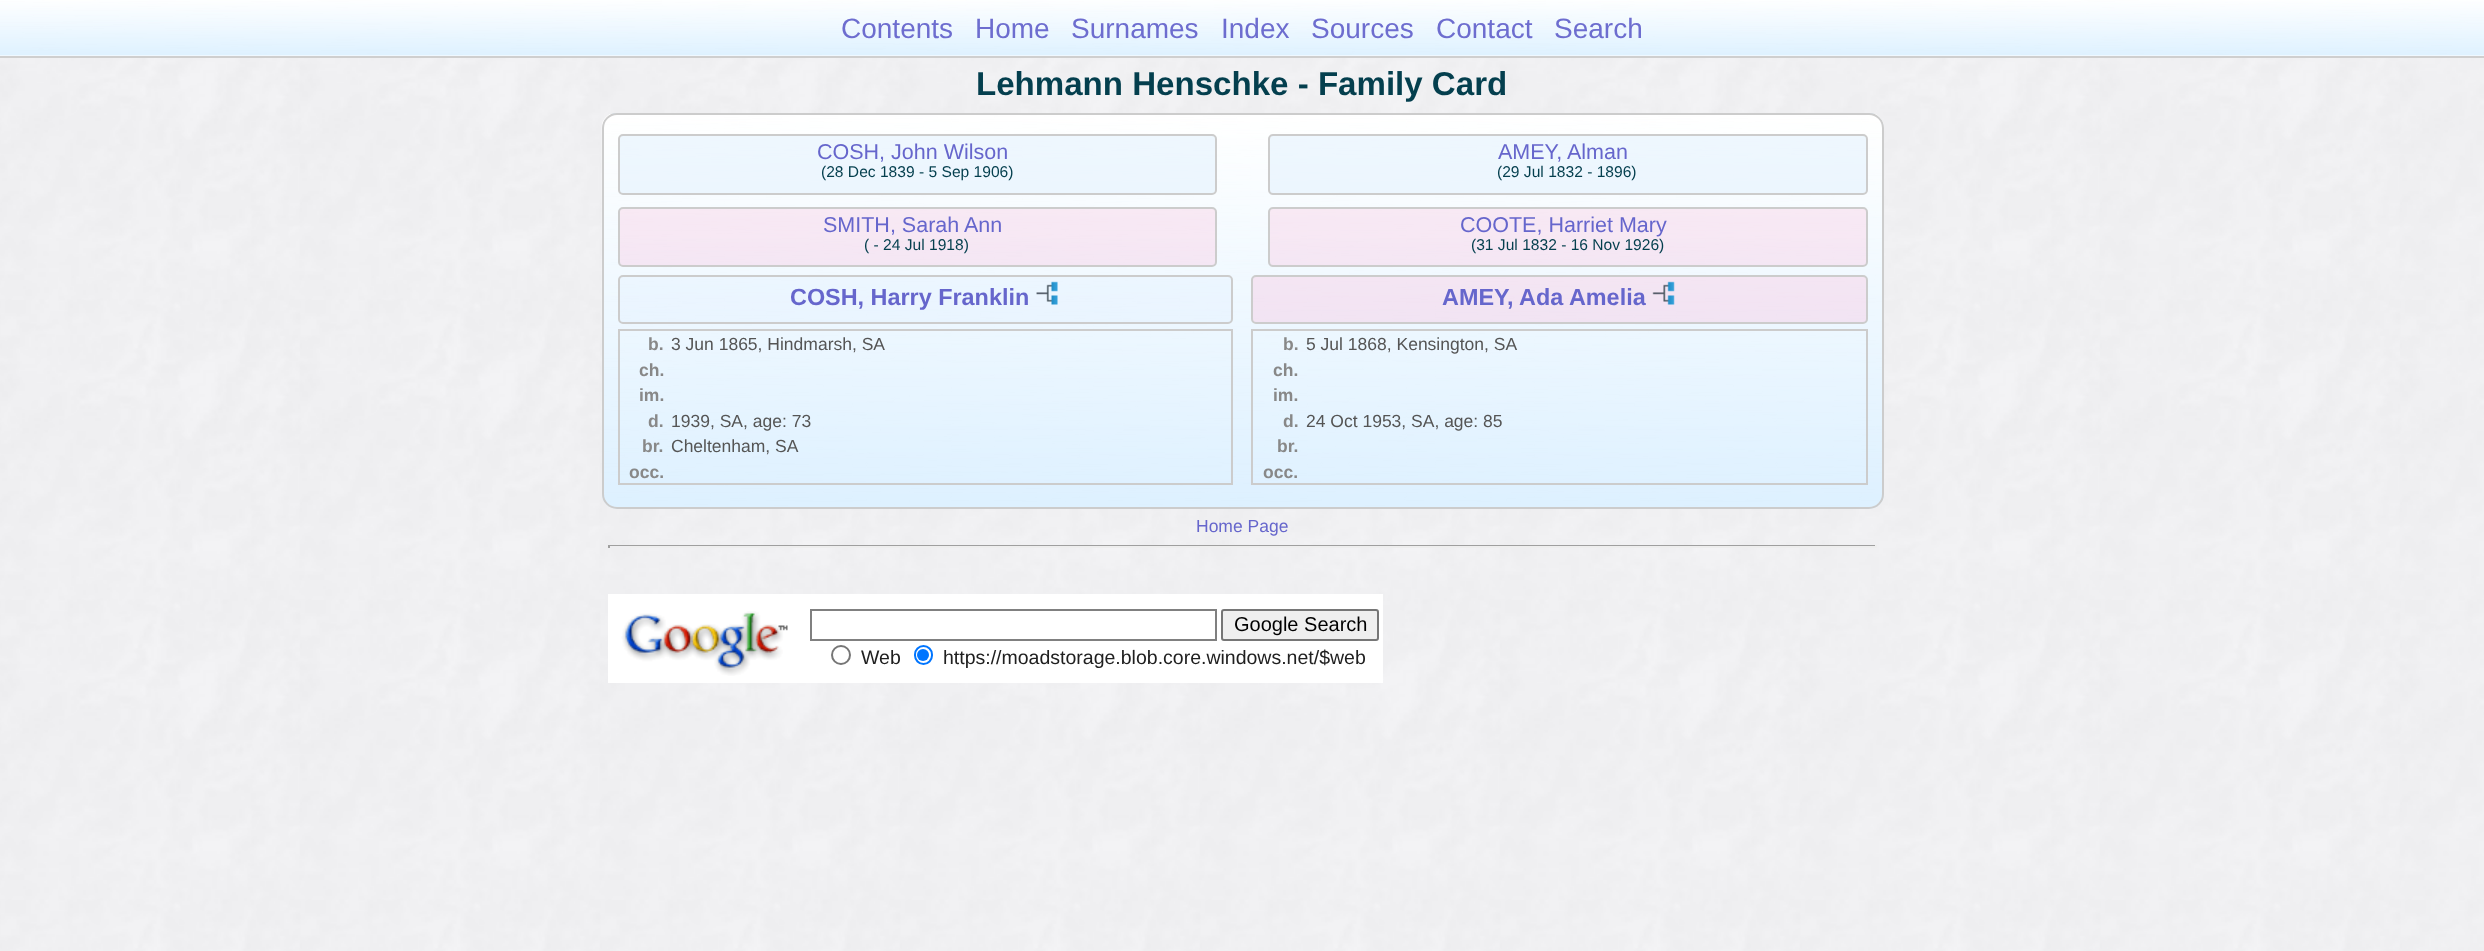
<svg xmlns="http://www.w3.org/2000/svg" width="2484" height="951">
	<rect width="100%" height="100%" fill="#FFFFFF" />
	<image x="0" y="0" width="2484" height="951" href="assets/img1.png" />
	<rect x="0" y="0" width="2484" height="56" fill="#DEF1FF" fill-opacity="0.95" />
	<image x="0" y="0" width="2484" height="57" href="assets/img2.png" />
	<rect x="0" y="56" width="2484" height="2" fill="#CCCCCC" fill-opacity="0.95" />
	<rect x="0" y="0" width="2484" height="56" fill="#DEF1FF" fill-opacity="0.95" />
	<image x="0" y="0" width="2484" height="57" href="assets/img3.png" />
	<rect x="0" y="56" width="2484" height="1" fill="#CCCCCC" fill-opacity="0.95" />
	<g font-family="Liberation Sans" font-size="28" fill="#6D6DCF">
		<text x="841" y="38">Contents</text>
		<text x="975" y="38">Home</text>
		<text x="1071" y="38">Surnames</text>
		<text x="1221" y="38">Index</text>
		<text x="1311" y="38">Sources</text>
		<text x="1436" y="38">Contact</text>
		<text x="1554" y="38">Search</text>
	</g>
	<text x="976" y="95" font-family="Liberation Sans" font-size="33.1" font-weight="700" fill="#043F4E">Lehmann Henschke - Family Card</text>
	<rect x="602" y="113" width="1282" height="396" rx="15" fill="#DEF1FF" />
	<image x="601" y="114" width="1283" height="395" href="assets/img4.png" />
	<rect x="603" y="114" width="1280" height="394" rx="14" fill="none" stroke="#CCCCCC" stroke-width="2" />
	<rect x="619" y="135" width="597" height="59" rx="4" fill="#E0EFFE" fill-opacity="0.51" stroke="#CCCCCC" stroke-width="2" />
	<text x="817" y="159" font-family="Liberation Sans" font-size="21.5" fill="#6666CC">COSH, John Wilson</text>
	<text x="821" y="177" font-family="Liberation Sans" font-size="15.6" fill="#043F4E">(28 Dec 1839 - 5 Sep 1906)</text>
	<rect x="1269" y="135" width="598" height="59" rx="4" fill="#E0EFFE" fill-opacity="0.51" stroke="#CCCCCC" stroke-width="2" />
	<text x="1498" y="159" font-family="Liberation Sans" font-size="21.5" fill="#6666CC">AMEY, Alman</text>
	<text x="1497" y="177" font-family="Liberation Sans" font-size="15.6" fill="#043F4E">(29 Jul 1832 - 1896)</text>
	<rect x="619" y="208" width="597" height="58" rx="4" fill="#FCB7D6" fill-opacity="0.28" stroke="#CCCCCC" stroke-width="2" />
	<text x="823" y="232" font-family="Liberation Sans" font-size="21.5" fill="#6666CC">SMITH, Sarah Ann</text>
	<text x="864" y="250" font-family="Liberation Sans" font-size="15.6" fill="#043F4E">( - 24 Jul 1918)</text>
	<rect x="1269" y="208" width="598" height="58" rx="4" fill="#FCB7D6" fill-opacity="0.28" stroke="#CCCCCC" stroke-width="2" />
	<text x="1460" y="232" font-family="Liberation Sans" font-size="21.5" fill="#6666CC">COOTE, Harriet Mary</text>
	<text x="1471" y="250" font-family="Liberation Sans" font-size="15.6" fill="#043F4E">(31 Jul 1832 - 16 Nov 1926)</text>
	<rect x="619" y="276" width="613" height="47" rx="4" fill="#E0EFFE" fill-opacity="0.3" stroke="#CCCCCC" stroke-width="2" />
	<text x="790" y="305" font-family="Liberation Sans" font-size="23.4" font-weight="700" fill="#6666CC">COSH, Harry Franklin</text>
	<image x="1036" y="281" width="22" height="24" href="assets/img5.png" />
	<rect x="1252" y="276" width="615" height="47" rx="4" fill="#FCB7D6" fill-opacity="0.3" stroke="#CCCCCC" stroke-width="2" />
	<text x="1442" y="305" font-family="Liberation Sans" font-size="23.4" font-weight="700" fill="#6666CC">AMEY, Ada Amelia</text>
	<image x="1652" y="281" width="23" height="24" href="assets/img6.png" />
	<rect x="619" y="330" width="613" height="154" fill="none" stroke="#CCCCCC" stroke-width="2" />
	<text x="648" y="350" font-family="Liberation Sans" font-size="17.5" font-weight="700" fill="#888888">b.</text>
	<text x="671" y="350" font-family="Liberation Sans" font-size="17.5" fill="#555555">3 Jun 1865, Hindmarsh, SA</text>
	<g font-family="Liberation Sans" font-size="17.5" font-weight="700" fill="#888888">
		<text x="639" y="376">ch.</text>
		<text x="639" y="401">im.</text>
		<text x="648" y="427">d.</text>
	</g>
	<text x="671" y="427" font-family="Liberation Sans" font-size="17.5" fill="#555555">1939, SA, age: 73</text>
	<text x="642" y="452" font-family="Liberation Sans" font-size="17.5" font-weight="700" fill="#888888">br.</text>
	<text x="671" y="452" font-family="Liberation Sans" font-size="17.5" fill="#555555">Cheltenham, SA</text>
	<text x="629" y="478" font-family="Liberation Sans" font-size="17.5" font-weight="700" fill="#888888">occ.</text>
	<rect x="1252" y="330" width="615" height="154" fill="none" stroke="#CCCCCC" stroke-width="2" />
	<text x="1283" y="350" font-family="Liberation Sans" font-size="17.5" font-weight="700" fill="#888888">b.</text>
	<text x="1306" y="350" font-family="Liberation Sans" font-size="17.5" fill="#555555">5 Jul 1868, Kensington, SA</text>
	<g font-family="Liberation Sans" font-size="17.5" font-weight="700" fill="#888888">
		<text x="1273" y="376">ch.</text>
		<text x="1273" y="401">im.</text>
		<text x="1283" y="427">d.</text>
	</g>
	<text x="1306" y="427" font-family="Liberation Sans" font-size="17.5" fill="#555555">24 Oct 1953, SA, age: 85</text>
	<g font-family="Liberation Sans" font-size="17.5" font-weight="700" fill="#888888">
		<text x="1277" y="452">br.</text>
		<text x="1263" y="478">occ.</text>
	</g>
	<text x="1196" y="532" font-family="Liberation Sans" font-size="17.5" fill="#6666CC">Home Page</text>
	<rect x="608" y="545" width="1269" height="1" fill="#9F9F9F" />
	<rect x="1875" y="545" width="2" height="3" fill="#EEEEEE" />
	<rect x="629" y="546" width="1248" height="2" fill="#EEEEEE" />
	<rect x="608" y="545" width="2" height="3" fill="#9F9F9F" />
	<rect x="608" y="594" width="775" height="89" fill="#FFFFFF" />
	<image x="621" y="611" width="167" height="65" href="assets/img7.png" />
	<rect x="811" y="610" width="405" height="30" fill="none" stroke="#808080" stroke-width="2" />
	<rect x="1222" y="610" width="156" height="30" rx="2" fill="#EFEFEF" stroke="#767676" stroke-width="2" />
	<text x="1234" y="631" font-family="Liberation Sans" font-size="20" fill="#000000">Google Search</text>
	<circle cx="841" cy="655" r="9" fill="none" stroke="#767676" stroke-width="2" />
	<text x="861" y="664" font-family="Liberation Sans" font-size="19.5" fill="#202020">Web</text>
	<rect x="915" y="646" width="17" height="18" rx="8.5" fill="none" stroke="#0075FF" stroke-width="2" />
	<circle cx="923" cy="655" r="6" fill="#0075FF" />
	<text x="943" y="664" font-family="Liberation Sans" font-size="19.5" fill="#202020">https://moadstorage.blob.core.windows.net/$web</text>
</svg>
